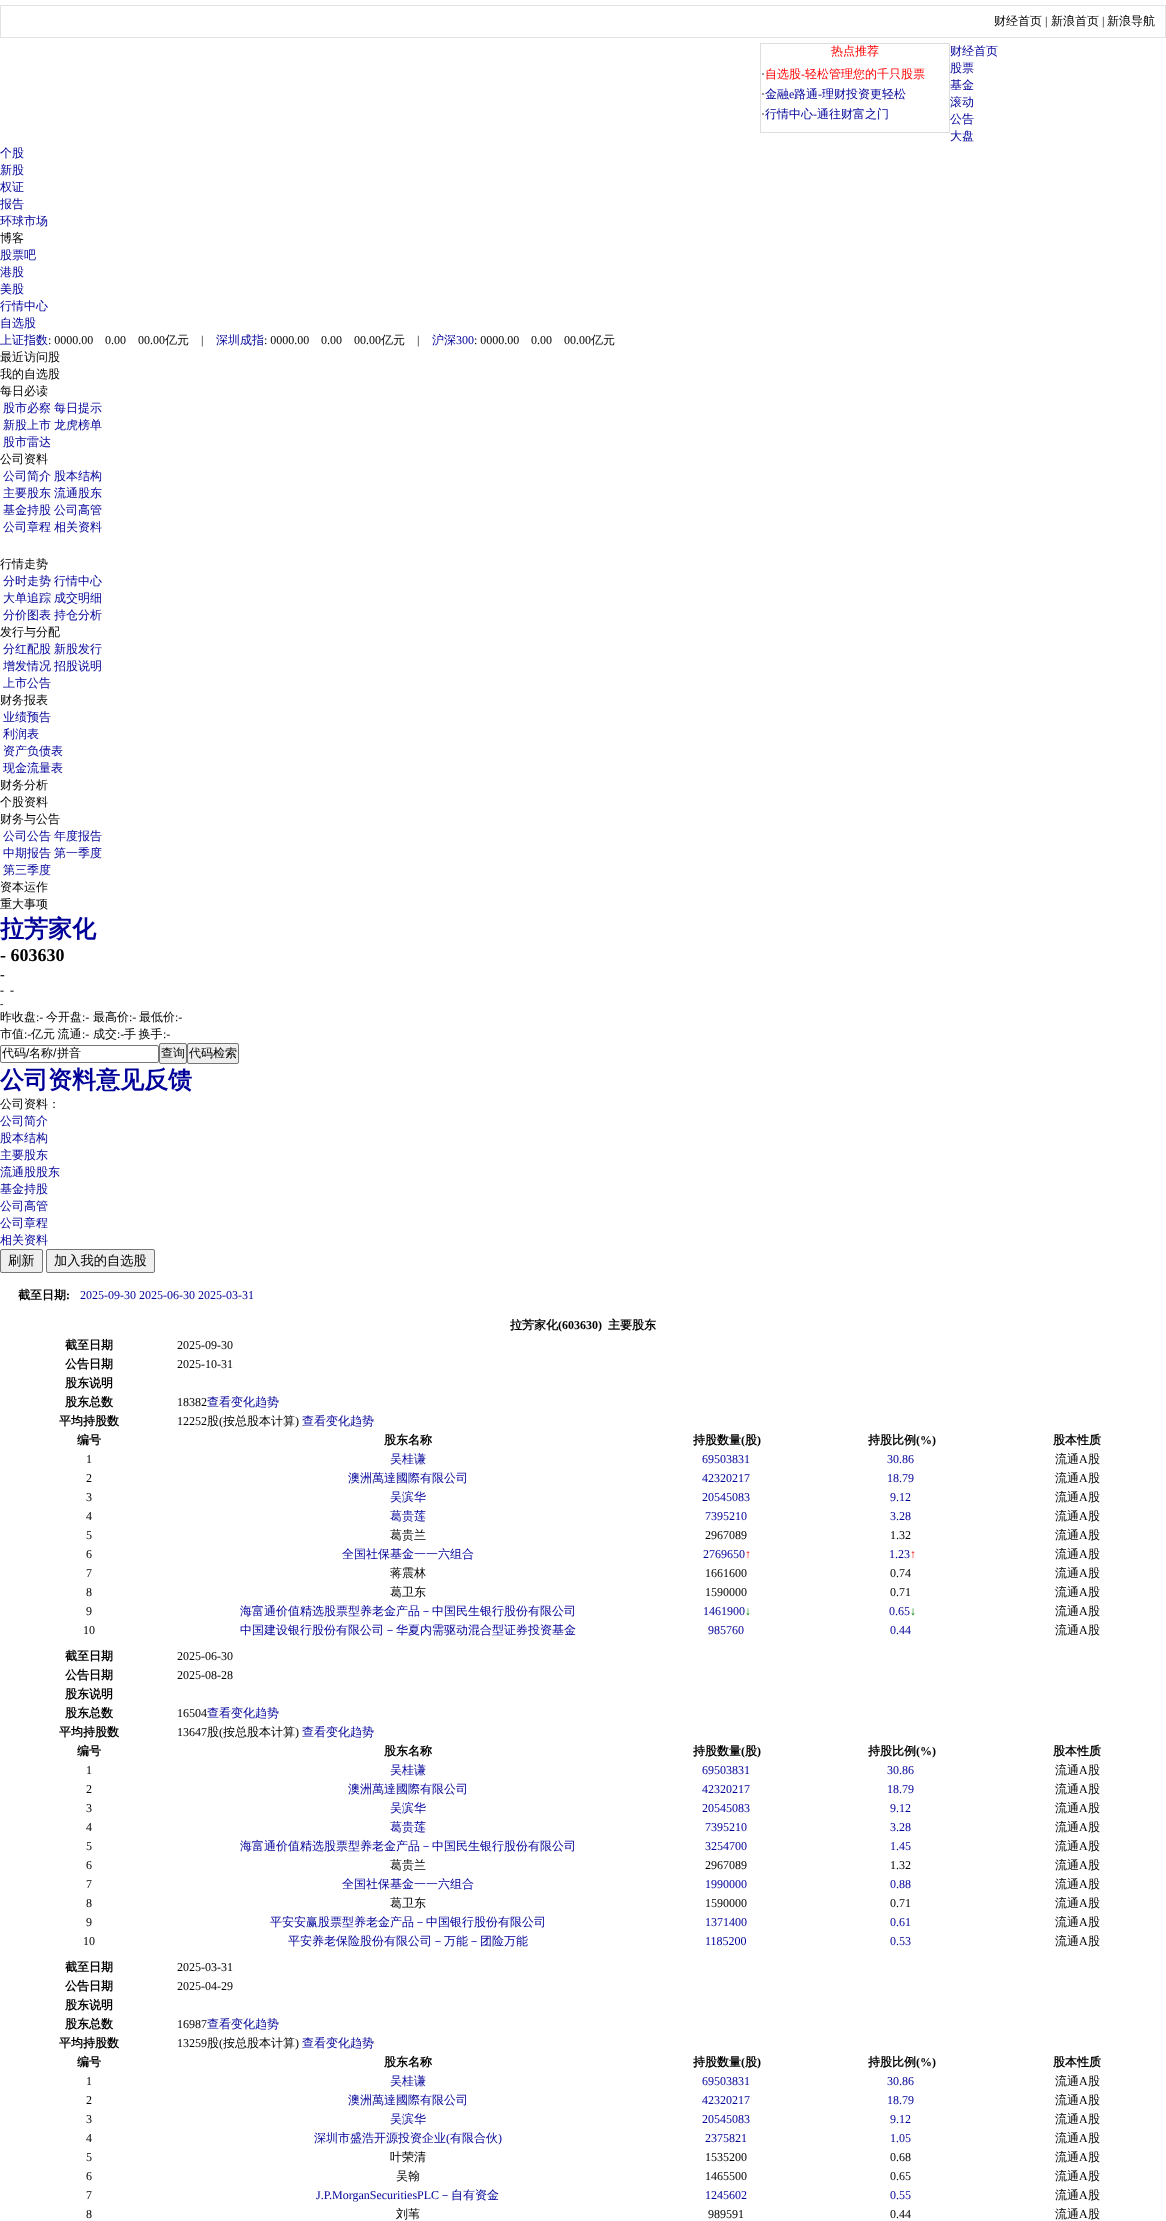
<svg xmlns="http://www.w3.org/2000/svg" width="1166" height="2221">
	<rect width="100%" height="100%" fill="#FFFFFF" />
	<rect x="0.5" y="5.5" width="1165" height="32" fill="none" stroke="#E3E3E3" />
	<text x="994" y="25" font-family="WenQuanYi Zen Hei" font-size="12" font-weight="500" fill="#000000">财经首页</text>
	<text x="1045" y="25" font-family="Liberation Serif" font-size="12" fill="#000000">|</text>
	<text x="1051" y="25" font-family="WenQuanYi Zen Hei" font-size="12" font-weight="500" fill="#000000">新浪首页</text>
	<text x="1102" y="25" font-family="Liberation Serif" font-size="12" fill="#000000">|</text>
	<text x="1107" y="25" font-family="WenQuanYi Zen Hei" font-size="12" font-weight="500" fill="#000000">新浪导航</text>
	<g font-family="WenQuanYi Zen Hei" font-size="12" font-weight="500" fill="#000099">
		<text x="950" y="55">财经首页</text>
		<text x="950" y="72">股票</text>
		<text x="950" y="89">基金</text>
		<text x="950" y="106">滚动</text>
		<text x="950" y="123">公告</text>
		<text x="950" y="140">大盘</text>
		<text x="0" y="157">个股</text>
		<text x="0" y="174">新股</text>
		<text x="0" y="191">权证</text>
		<text x="0" y="208">报告</text>
		<text x="0" y="225">环球市场</text>
	</g>
	<text x="0" y="242" font-family="WenQuanYi Zen Hei" font-size="12" font-weight="500" fill="#000000">博客</text>
	<g font-family="WenQuanYi Zen Hei" font-size="12" font-weight="500" fill="#000099">
		<text x="0" y="259">股票吧</text>
		<text x="0" y="276">港股</text>
		<text x="0" y="293">美股</text>
		<text x="0" y="310">行情中心</text>
		<text x="0" y="327">自选股</text>
	</g>
	<rect x="760.5" y="43.5" width="189" height="89" fill="none" stroke="#DEDEDE" />
	<text x="831" y="55" font-family="WenQuanYi Zen Hei" font-size="12" font-weight="500" fill="#FF0000">热点推荐</text>
	<text x="761" y="78" font-family="Liberation Serif" font-size="12" fill="#000000">·</text>
	<text x="765" y="78" font-family="WenQuanYi Zen Hei" font-size="12" font-weight="500" fill="#FF0000">自选股</text>
	<text x="801" y="78" font-family="Liberation Serif" font-size="12" fill="#FF0000">-</text>
	<text x="805" y="78" font-family="WenQuanYi Zen Hei" font-size="12" font-weight="500" fill="#FF0000">轻松管理您的千只股票</text>
	<text x="761" y="98" font-family="Liberation Serif" font-size="12" fill="#000000">·</text>
	<text x="765" y="98" font-family="WenQuanYi Zen Hei" font-size="12" font-weight="500" fill="#000099">金融</text>
	<text x="789" y="98" font-family="Liberation Serif" font-size="12" fill="#000099">e</text>
	<text x="794" y="98" font-family="WenQuanYi Zen Hei" font-size="12" font-weight="500" fill="#000099">路通</text>
	<text x="818" y="98" font-family="Liberation Serif" font-size="12" fill="#000099">-</text>
	<text x="822" y="98" font-family="WenQuanYi Zen Hei" font-size="12" font-weight="500" fill="#000099">理财投资更轻松</text>
	<text x="761" y="118" font-family="Liberation Serif" font-size="12" fill="#000000">·</text>
	<text x="765" y="118" font-family="WenQuanYi Zen Hei" font-size="12" font-weight="500" fill="#000099">行情中心</text>
	<text x="813" y="118" font-family="Liberation Serif" font-size="12" fill="#000099">-</text>
	<g font-family="WenQuanYi Zen Hei" font-size="12" font-weight="500" fill="#000099">
		<text x="817" y="118">通往财富之门</text>
		<text x="0" y="344">上证指数</text>
	</g>
	<g font-family="Liberation Serif" font-size="12" fill="#000000">
		<text x="48" y="344">: 0000.00</text>
		<text x="105" y="344">0.00</text>
		<text x="138" y="344">00.00</text>
	</g>
	<text x="165" y="344" font-family="WenQuanYi Zen Hei" font-size="12" font-weight="500" fill="#000000">亿元</text>
	<text x="201" y="344" font-family="Liberation Serif" font-size="12" fill="#000000">|</text>
	<text x="216" y="344" font-family="WenQuanYi Zen Hei" font-size="12" font-weight="500" fill="#000099">深圳成指</text>
	<g font-family="Liberation Serif" font-size="12" fill="#000000">
		<text x="264" y="344">: 0000.00</text>
		<text x="321" y="344">0.00</text>
		<text x="354" y="344">00.00</text>
	</g>
	<text x="381" y="344" font-family="WenQuanYi Zen Hei" font-size="12" font-weight="500" fill="#000000">亿元</text>
	<text x="417" y="344" font-family="Liberation Serif" font-size="12" fill="#000000">|</text>
	<text x="432" y="344" font-family="WenQuanYi Zen Hei" font-size="12" font-weight="500" fill="#000099">沪深</text>
	<text x="456" y="344" font-family="Liberation Serif" font-size="12" fill="#000099">300</text>
	<g font-family="Liberation Serif" font-size="12" fill="#000000">
		<text x="474" y="344">: 0000.00</text>
		<text x="531" y="344">0.00</text>
		<text x="564" y="344">00.00</text>
	</g>
	<g font-family="WenQuanYi Zen Hei" font-size="12" font-weight="500" fill="#000000">
		<text x="591" y="344">亿元</text>
		<text x="0" y="361">最近访问股</text>
		<text x="0" y="378">我的自选股</text>
		<text x="0" y="395">每日必读</text>
	</g>
	<g font-family="WenQuanYi Zen Hei" font-size="12" font-weight="500" fill="#000099">
		<text x="3" y="412">股市必察</text>
		<text x="54" y="412">每日提示</text>
		<text x="3" y="429">新股上市</text>
		<text x="54" y="429">龙虎榜单</text>
		<text x="3" y="446">股市雷达</text>
	</g>
	<text x="0" y="463" font-family="WenQuanYi Zen Hei" font-size="12" font-weight="500" fill="#000000">公司资料</text>
	<g font-family="WenQuanYi Zen Hei" font-size="12" font-weight="500" fill="#000099">
		<text x="3" y="480">公司简介</text>
		<text x="54" y="480">股本结构</text>
		<text x="3" y="497">主要股东</text>
		<text x="54" y="497">流通股东</text>
		<text x="3" y="514">基金持股</text>
		<text x="54" y="514">公司高管</text>
		<text x="3" y="531">公司章程</text>
		<text x="54" y="531">相关资料</text>
	</g>
	<text x="0" y="568" font-family="WenQuanYi Zen Hei" font-size="12" font-weight="500" fill="#000000">行情走势</text>
	<g font-family="WenQuanYi Zen Hei" font-size="12" font-weight="500" fill="#000099">
		<text x="3" y="585">分时走势</text>
		<text x="54" y="585">行情中心</text>
		<text x="3" y="602">大单追踪</text>
		<text x="54" y="602">成交明细</text>
		<text x="3" y="619">分价图表</text>
		<text x="54" y="619">持仓分析</text>
	</g>
	<text x="0" y="636" font-family="WenQuanYi Zen Hei" font-size="12" font-weight="500" fill="#000000">发行与分配</text>
	<g font-family="WenQuanYi Zen Hei" font-size="12" font-weight="500" fill="#000099">
		<text x="3" y="653">分红配股</text>
		<text x="54" y="653">新股发行</text>
		<text x="3" y="670">增发情况</text>
		<text x="54" y="670">招股说明</text>
		<text x="3" y="687">上市公告</text>
	</g>
	<text x="0" y="704" font-family="WenQuanYi Zen Hei" font-size="12" font-weight="500" fill="#000000">财务报表</text>
	<g font-family="WenQuanYi Zen Hei" font-size="12" font-weight="500" fill="#000099">
		<text x="3" y="721">业绩预告</text>
		<text x="3" y="738">利润表</text>
		<text x="3" y="755">资产负债表</text>
		<text x="3" y="772">现金流量表</text>
	</g>
	<g font-family="WenQuanYi Zen Hei" font-size="12" font-weight="500" fill="#000000">
		<text x="0" y="789">财务分析</text>
		<text x="0" y="806">个股资料</text>
		<text x="0" y="823">财务与公告</text>
	</g>
	<g font-family="WenQuanYi Zen Hei" font-size="12" font-weight="500" fill="#000099">
		<text x="3" y="840">公司公告</text>
		<text x="54" y="840">年度报告</text>
		<text x="3" y="857">中期报告</text>
		<text x="54" y="857">第一季度</text>
		<text x="3" y="874">第三季度</text>
	</g>
	<g font-family="WenQuanYi Zen Hei" font-size="12" font-weight="500" fill="#000000">
		<text x="0" y="891">资本运作</text>
		<text x="0" y="908">重大事项</text>
	</g>
	<text x="0" y="937" font-family="WenQuanYi Zen Hei" font-size="24" font-weight="700" fill="#000099">拉芳家化</text>
	<text x="0" y="961" font-family="Liberation Serif" font-size="18" font-weight="700" fill="#000000">- 603630</text>
	<text x="0" y="979" font-family="Liberation Serif" font-size="14" font-weight="700" fill="#000000">-</text>
	<g font-family="Liberation Serif" font-size="12" font-weight="700" fill="#000000">
		<text x="0" y="994">-</text>
		<text x="10" y="994">-</text>
	</g>
	<text x="0" y="1007" font-family="Liberation Serif" font-size="10" font-weight="700" fill="#000000">-</text>
	<text x="0" y="1021" font-family="WenQuanYi Zen Hei" font-size="12" font-weight="500" fill="#000000">昨收盘</text>
	<text x="36" y="1021" font-family="Liberation Serif" font-size="12" fill="#000000">:-</text>
	<text x="46" y="1021" font-family="WenQuanYi Zen Hei" font-size="12" font-weight="500" fill="#000000">今开盘</text>
	<text x="82" y="1021" font-family="Liberation Serif" font-size="12" fill="#000000">:-</text>
	<text x="93" y="1021" font-family="WenQuanYi Zen Hei" font-size="12" font-weight="500" fill="#000000">最高价</text>
	<text x="129" y="1021" font-family="Liberation Serif" font-size="12" fill="#000000">:-</text>
	<text x="139" y="1021" font-family="WenQuanYi Zen Hei" font-size="12" font-weight="500" fill="#000000">最低价</text>
	<text x="175" y="1021" font-family="Liberation Serif" font-size="12" fill="#000000">:-</text>
	<text x="0" y="1038" font-family="WenQuanYi Zen Hei" font-size="12" font-weight="500" fill="#000000">市值</text>
	<text x="24" y="1038" font-family="Liberation Serif" font-size="12" fill="#000000">:-</text>
	<text x="31" y="1038" word-spacing="-1" font-family="WenQuanYi Zen Hei" font-size="12" font-weight="500" fill="#000000">亿元 流通</text>
	<text x="82" y="1038" font-family="Liberation Serif" font-size="12" fill="#000000">:-</text>
	<text x="93" y="1038" font-family="WenQuanYi Zen Hei" font-size="12" font-weight="500" fill="#000000">成交</text>
	<text x="117" y="1038" font-family="Liberation Serif" font-size="12" fill="#000000">:-</text>
	<text x="124" y="1038" word-spacing="-1" font-family="WenQuanYi Zen Hei" font-size="12" font-weight="500" fill="#000000">手 换手</text>
	<text x="163" y="1038" font-family="Liberation Serif" font-size="12" fill="#000000">:-</text>
	<rect x="0.5" y="1045.5" width="158" height="17" rx="1.5" fill="none" stroke="#767676" />
	<text x="2" y="1057" font-family="WenQuanYi Zen Hei" font-size="12" font-weight="500" fill="#000000">代码</text>
	<text x="26" y="1057" font-family="Liberation Sans" font-size="12" fill="#000000">/</text>
	<text x="29" y="1057" font-family="WenQuanYi Zen Hei" font-size="12" font-weight="500" fill="#000000">名称</text>
	<text x="53" y="1057" font-family="Liberation Sans" font-size="12" fill="#000000">/</text>
	<text x="57" y="1057" font-family="WenQuanYi Zen Hei" font-size="12" font-weight="500" fill="#000000">拼音</text>
	<rect x="159.5" y="1043.5" width="27" height="20" rx="1.5" fill="#EFEFEF" stroke="#767676" />
	<text x="161" y="1057" font-family="WenQuanYi Zen Hei" font-size="12" font-weight="500" fill="#000000">查询</text>
	<rect x="187.5" y="1043.5" width="51" height="20" rx="1.5" fill="#EFEFEF" stroke="#767676" />
	<text x="189" y="1057" font-family="WenQuanYi Zen Hei" font-size="12" font-weight="500" fill="#000000">代码检索</text>
	<text x="0" y="1088" font-family="WenQuanYi Zen Hei" font-size="24" font-weight="700" fill="#000099">公司资料意见反馈</text>
	<text x="0" y="1108" font-family="WenQuanYi Zen Hei" font-size="12" font-weight="500" fill="#000000">公司资料：</text>
	<g font-family="WenQuanYi Zen Hei" font-size="12" font-weight="500" fill="#000099">
		<text x="0" y="1125">公司简介</text>
		<text x="0" y="1142">股本结构</text>
		<text x="0" y="1159">主要股东</text>
		<text x="0" y="1176">流通股股东</text>
		<text x="0" y="1193">基金持股</text>
		<text x="0" y="1210">公司高管</text>
		<text x="0" y="1227">公司章程</text>
		<text x="0" y="1244">相关资料</text>
	</g>
	<rect x="0.5" y="1249.5" width="42" height="23" rx="1.5" fill="#EFEFEF" stroke="#767676" />
	<text x="8" y="1265" font-family="WenQuanYi Zen Hei" font-size="13.25" font-weight="500" fill="#000000">刷新</text>
	<rect x="46.5" y="1249.5" width="108" height="23" rx="1.5" fill="#EFEFEF" stroke="#767676" />
	<text x="54" y="1265" font-family="WenQuanYi Zen Hei" font-size="13.25" font-weight="500" fill="#000000">加入我的自选股</text>
	<text x="18" y="1299" font-family="WenQuanYi Zen Hei" font-size="12" font-weight="700" fill="#000000">截至日期</text>
	<text x="66" y="1299" font-family="Liberation Serif" font-size="12" font-weight="700" fill="#000000">:</text>
	<text x="80" y="1299" font-family="Liberation Serif" font-size="12" fill="#000099">2025-09-30 2025-06-30 2025-03-31</text>
	<text x="510" y="1329" font-family="WenQuanYi Zen Hei" font-size="12" font-weight="700" fill="#000000">拉芳家化</text>
	<text x="558" y="1329" font-family="Liberation Serif" font-size="12" font-weight="700" fill="#000000">(603630)</text>
	<g font-family="WenQuanYi Zen Hei" font-size="12" font-weight="700" fill="#000000">
		<text x="608" y="1329">主要股东</text>
		<text x="65" y="1349">截至日期</text>
	</g>
	<text x="177" y="1349" font-family="Liberation Serif" font-size="12" fill="#000000">2025-09-30</text>
	<text x="65" y="1368" font-family="WenQuanYi Zen Hei" font-size="12" font-weight="700" fill="#000000">公告日期</text>
	<text x="177" y="1368" font-family="Liberation Serif" font-size="12" fill="#000000">2025-10-31</text>
	<g font-family="WenQuanYi Zen Hei" font-size="12" font-weight="700" fill="#000000">
		<text x="65" y="1387">股东说明</text>
		<text x="65" y="1406">股东总数</text>
	</g>
	<text x="177" y="1406" font-family="Liberation Serif" font-size="12" fill="#000000">18382</text>
	<text x="207" y="1406" font-family="WenQuanYi Zen Hei" font-size="12" font-weight="500" fill="#000099">查看变化趋势</text>
	<text x="59" y="1425" font-family="WenQuanYi Zen Hei" font-size="12" font-weight="700" fill="#000000">平均持股数</text>
	<text x="177" y="1425" font-family="Liberation Serif" font-size="12" fill="#000000">12252</text>
	<text x="207" y="1425" font-family="WenQuanYi Zen Hei" font-size="12" font-weight="500" fill="#000000">股</text>
	<text x="219" y="1425" font-family="Liberation Serif" font-size="12" fill="#000000">(</text>
	<text x="223" y="1425" font-family="WenQuanYi Zen Hei" font-size="12" font-weight="500" fill="#000000">按总股本计算</text>
	<text x="295" y="1425" font-family="Liberation Serif" font-size="12" fill="#000000">)</text>
	<text x="302" y="1425" font-family="WenQuanYi Zen Hei" font-size="12" font-weight="500" fill="#000099">查看变化趋势</text>
	<g font-family="WenQuanYi Zen Hei" font-size="12" font-weight="700" fill="#000000">
		<text x="77" y="1444">编号</text>
		<text x="384" y="1444">股东名称</text>
		<text x="693" y="1444">持股数量</text>
	</g>
	<text x="741" y="1444" font-family="Liberation Serif" font-size="12" font-weight="700" fill="#000000">(</text>
	<text x="745" y="1444" font-family="WenQuanYi Zen Hei" font-size="12" font-weight="700" fill="#000000">股</text>
	<text x="757" y="1444" font-family="Liberation Serif" font-size="12" font-weight="700" fill="#000000">)</text>
	<text x="868" y="1444" font-family="WenQuanYi Zen Hei" font-size="12" font-weight="700" fill="#000000">持股比例</text>
	<text x="916" y="1444" font-family="Liberation Serif" font-size="12" font-weight="700" fill="#000000">(%)</text>
	<text x="1053" y="1444" font-family="WenQuanYi Zen Hei" font-size="12" font-weight="700" fill="#000000">股本性质</text>
	<text x="86" y="1463" font-family="Liberation Serif" font-size="12" fill="#000000">1</text>
	<text x="390" y="1463" font-family="WenQuanYi Zen Hei" font-size="12" font-weight="500" fill="#000099">吴桂谦</text>
	<g font-family="Liberation Serif" font-size="12" fill="#000099">
		<text x="702" y="1463">69503831</text>
		<text x="887" y="1463">30.86</text>
	</g>
	<text x="1055" y="1463" font-family="WenQuanYi Zen Hei" font-size="12" font-weight="500" fill="#000000">流通</text>
	<text x="1079" y="1463" font-family="Liberation Serif" font-size="12" fill="#000000">A</text>
	<text x="1088" y="1463" font-family="WenQuanYi Zen Hei" font-size="12" font-weight="500" fill="#000000">股</text>
	<text x="86" y="1482" font-family="Liberation Serif" font-size="12" fill="#000000">2</text>
	<text x="348" y="1482" font-family="WenQuanYi Zen Hei" font-size="12" font-weight="500" fill="#000099">澳洲萬達國際有限公司</text>
	<g font-family="Liberation Serif" font-size="12" fill="#000099">
		<text x="702" y="1482">42320217</text>
		<text x="887" y="1482">18.79</text>
	</g>
	<text x="1055" y="1482" font-family="WenQuanYi Zen Hei" font-size="12" font-weight="500" fill="#000000">流通</text>
	<text x="1079" y="1482" font-family="Liberation Serif" font-size="12" fill="#000000">A</text>
	<text x="1088" y="1482" font-family="WenQuanYi Zen Hei" font-size="12" font-weight="500" fill="#000000">股</text>
	<text x="86" y="1501" font-family="Liberation Serif" font-size="12" fill="#000000">3</text>
	<text x="390" y="1501" font-family="WenQuanYi Zen Hei" font-size="12" font-weight="500" fill="#000099">吴滨华</text>
	<g font-family="Liberation Serif" font-size="12" fill="#000099">
		<text x="702" y="1501">20545083</text>
		<text x="890" y="1501">9.12</text>
	</g>
	<text x="1055" y="1501" font-family="WenQuanYi Zen Hei" font-size="12" font-weight="500" fill="#000000">流通</text>
	<text x="1079" y="1501" font-family="Liberation Serif" font-size="12" fill="#000000">A</text>
	<text x="1088" y="1501" font-family="WenQuanYi Zen Hei" font-size="12" font-weight="500" fill="#000000">股</text>
	<text x="86" y="1520" font-family="Liberation Serif" font-size="12" fill="#000000">4</text>
	<text x="390" y="1520" font-family="WenQuanYi Zen Hei" font-size="12" font-weight="500" fill="#000099">葛贵莲</text>
	<g font-family="Liberation Serif" font-size="12" fill="#000099">
		<text x="705" y="1520">7395210</text>
		<text x="890" y="1520">3.28</text>
	</g>
	<text x="1055" y="1520" font-family="WenQuanYi Zen Hei" font-size="12" font-weight="500" fill="#000000">流通</text>
	<text x="1079" y="1520" font-family="Liberation Serif" font-size="12" fill="#000000">A</text>
	<text x="1088" y="1520" font-family="WenQuanYi Zen Hei" font-size="12" font-weight="500" fill="#000000">股</text>
	<text x="86" y="1539" font-family="Liberation Serif" font-size="12" fill="#000000">5</text>
	<text x="390" y="1539" font-family="WenQuanYi Zen Hei" font-size="12" font-weight="500" fill="#000000">葛贵兰</text>
	<g font-family="Liberation Serif" font-size="12" fill="#000000">
		<text x="705" y="1539">2967089</text>
		<text x="890" y="1539">1.32</text>
	</g>
	<text x="1055" y="1539" font-family="WenQuanYi Zen Hei" font-size="12" font-weight="500" fill="#000000">流通</text>
	<text x="1079" y="1539" font-family="Liberation Serif" font-size="12" fill="#000000">A</text>
	<text x="1088" y="1539" font-family="WenQuanYi Zen Hei" font-size="12" font-weight="500" fill="#000000">股</text>
	<text x="86" y="1558" font-family="Liberation Serif" font-size="12" fill="#000000">6</text>
	<text x="342" y="1558" font-family="WenQuanYi Zen Hei" font-size="12" font-weight="500" fill="#000099">全国社保基金一一六组合</text>
	<text x="703" y="1558" font-family="Liberation Serif" font-size="12" fill="#000099">2769650</text>
	<text x="745" y="1558" font-family="Liberation Serif" font-size="12" fill="#FF0000">↑</text>
	<text x="889" y="1558" font-family="Liberation Serif" font-size="12" fill="#000099">1.23</text>
	<text x="910" y="1558" font-family="Liberation Serif" font-size="12" fill="#FF0000">↑</text>
	<text x="1055" y="1558" font-family="WenQuanYi Zen Hei" font-size="12" font-weight="500" fill="#000000">流通</text>
	<text x="1079" y="1558" font-family="Liberation Serif" font-size="12" fill="#000000">A</text>
	<text x="1088" y="1558" font-family="WenQuanYi Zen Hei" font-size="12" font-weight="500" fill="#000000">股</text>
	<text x="86" y="1577" font-family="Liberation Serif" font-size="12" fill="#000000">7</text>
	<text x="390" y="1577" font-family="WenQuanYi Zen Hei" font-size="12" font-weight="500" fill="#000000">蒋震林</text>
	<g font-family="Liberation Serif" font-size="12" fill="#000000">
		<text x="705" y="1577">1661600</text>
		<text x="890" y="1577">0.74</text>
	</g>
	<text x="1055" y="1577" font-family="WenQuanYi Zen Hei" font-size="12" font-weight="500" fill="#000000">流通</text>
	<text x="1079" y="1577" font-family="Liberation Serif" font-size="12" fill="#000000">A</text>
	<text x="1088" y="1577" font-family="WenQuanYi Zen Hei" font-size="12" font-weight="500" fill="#000000">股</text>
	<text x="86" y="1596" font-family="Liberation Serif" font-size="12" fill="#000000">8</text>
	<text x="390" y="1596" font-family="WenQuanYi Zen Hei" font-size="12" font-weight="500" fill="#000000">葛卫东</text>
	<g font-family="Liberation Serif" font-size="12" fill="#000000">
		<text x="705" y="1596">1590000</text>
		<text x="890" y="1596">0.71</text>
	</g>
	<text x="1055" y="1596" font-family="WenQuanYi Zen Hei" font-size="12" font-weight="500" fill="#000000">流通</text>
	<text x="1079" y="1596" font-family="Liberation Serif" font-size="12" fill="#000000">A</text>
	<text x="1088" y="1596" font-family="WenQuanYi Zen Hei" font-size="12" font-weight="500" fill="#000000">股</text>
	<text x="86" y="1615" font-family="Liberation Serif" font-size="12" fill="#000000">9</text>
	<text x="240" y="1615" font-family="WenQuanYi Zen Hei" font-size="12" font-weight="500" fill="#000099">海富通价值精选股票型养老金产品－中国民生银行股份有限公司</text>
	<text x="703" y="1615" font-family="Liberation Serif" font-size="12" fill="#000099">1461900</text>
	<text x="745" y="1615" font-family="Liberation Serif" font-size="12" fill="#008000">↓</text>
	<text x="889" y="1615" font-family="Liberation Serif" font-size="12" fill="#000099">0.65</text>
	<text x="910" y="1615" font-family="Liberation Serif" font-size="12" fill="#008000">↓</text>
	<text x="1055" y="1615" font-family="WenQuanYi Zen Hei" font-size="12" font-weight="500" fill="#000000">流通</text>
	<text x="1079" y="1615" font-family="Liberation Serif" font-size="12" fill="#000000">A</text>
	<text x="1088" y="1615" font-family="WenQuanYi Zen Hei" font-size="12" font-weight="500" fill="#000000">股</text>
	<text x="83" y="1634" font-family="Liberation Serif" font-size="12" fill="#000000">10</text>
	<text x="240" y="1634" font-family="WenQuanYi Zen Hei" font-size="12" font-weight="500" fill="#000099">中国建设银行股份有限公司－华夏内需驱动混合型证券投资基金</text>
	<g font-family="Liberation Serif" font-size="12" fill="#000099">
		<text x="708" y="1634">985760</text>
		<text x="890" y="1634">0.44</text>
	</g>
	<text x="1055" y="1634" font-family="WenQuanYi Zen Hei" font-size="12" font-weight="500" fill="#000000">流通</text>
	<text x="1079" y="1634" font-family="Liberation Serif" font-size="12" fill="#000000">A</text>
	<text x="1088" y="1634" font-family="WenQuanYi Zen Hei" font-size="12" font-weight="500" fill="#000000">股</text>
	<text x="65" y="1660" font-family="WenQuanYi Zen Hei" font-size="12" font-weight="700" fill="#000000">截至日期</text>
	<text x="177" y="1660" font-family="Liberation Serif" font-size="12" fill="#000000">2025-06-30</text>
	<text x="65" y="1679" font-family="WenQuanYi Zen Hei" font-size="12" font-weight="700" fill="#000000">公告日期</text>
	<text x="177" y="1679" font-family="Liberation Serif" font-size="12" fill="#000000">2025-08-28</text>
	<g font-family="WenQuanYi Zen Hei" font-size="12" font-weight="700" fill="#000000">
		<text x="65" y="1698">股东说明</text>
		<text x="65" y="1717">股东总数</text>
	</g>
	<text x="177" y="1717" font-family="Liberation Serif" font-size="12" fill="#000000">16504</text>
	<text x="207" y="1717" font-family="WenQuanYi Zen Hei" font-size="12" font-weight="500" fill="#000099">查看变化趋势</text>
	<text x="59" y="1736" font-family="WenQuanYi Zen Hei" font-size="12" font-weight="700" fill="#000000">平均持股数</text>
	<text x="177" y="1736" font-family="Liberation Serif" font-size="12" fill="#000000">13647</text>
	<text x="207" y="1736" font-family="WenQuanYi Zen Hei" font-size="12" font-weight="500" fill="#000000">股</text>
	<text x="219" y="1736" font-family="Liberation Serif" font-size="12" fill="#000000">(</text>
	<text x="223" y="1736" font-family="WenQuanYi Zen Hei" font-size="12" font-weight="500" fill="#000000">按总股本计算</text>
	<text x="295" y="1736" font-family="Liberation Serif" font-size="12" fill="#000000">)</text>
	<text x="302" y="1736" font-family="WenQuanYi Zen Hei" font-size="12" font-weight="500" fill="#000099">查看变化趋势</text>
	<g font-family="WenQuanYi Zen Hei" font-size="12" font-weight="700" fill="#000000">
		<text x="77" y="1755">编号</text>
		<text x="384" y="1755">股东名称</text>
		<text x="693" y="1755">持股数量</text>
	</g>
	<text x="741" y="1755" font-family="Liberation Serif" font-size="12" font-weight="700" fill="#000000">(</text>
	<text x="745" y="1755" font-family="WenQuanYi Zen Hei" font-size="12" font-weight="700" fill="#000000">股</text>
	<text x="757" y="1755" font-family="Liberation Serif" font-size="12" font-weight="700" fill="#000000">)</text>
	<text x="868" y="1755" font-family="WenQuanYi Zen Hei" font-size="12" font-weight="700" fill="#000000">持股比例</text>
	<text x="916" y="1755" font-family="Liberation Serif" font-size="12" font-weight="700" fill="#000000">(%)</text>
	<text x="1053" y="1755" font-family="WenQuanYi Zen Hei" font-size="12" font-weight="700" fill="#000000">股本性质</text>
	<text x="86" y="1774" font-family="Liberation Serif" font-size="12" fill="#000000">1</text>
	<text x="390" y="1774" font-family="WenQuanYi Zen Hei" font-size="12" font-weight="500" fill="#000099">吴桂谦</text>
	<g font-family="Liberation Serif" font-size="12" fill="#000099">
		<text x="702" y="1774">69503831</text>
		<text x="887" y="1774">30.86</text>
	</g>
	<text x="1055" y="1774" font-family="WenQuanYi Zen Hei" font-size="12" font-weight="500" fill="#000000">流通</text>
	<text x="1079" y="1774" font-family="Liberation Serif" font-size="12" fill="#000000">A</text>
	<text x="1088" y="1774" font-family="WenQuanYi Zen Hei" font-size="12" font-weight="500" fill="#000000">股</text>
	<text x="86" y="1793" font-family="Liberation Serif" font-size="12" fill="#000000">2</text>
	<text x="348" y="1793" font-family="WenQuanYi Zen Hei" font-size="12" font-weight="500" fill="#000099">澳洲萬達國際有限公司</text>
	<g font-family="Liberation Serif" font-size="12" fill="#000099">
		<text x="702" y="1793">42320217</text>
		<text x="887" y="1793">18.79</text>
	</g>
	<text x="1055" y="1793" font-family="WenQuanYi Zen Hei" font-size="12" font-weight="500" fill="#000000">流通</text>
	<text x="1079" y="1793" font-family="Liberation Serif" font-size="12" fill="#000000">A</text>
	<text x="1088" y="1793" font-family="WenQuanYi Zen Hei" font-size="12" font-weight="500" fill="#000000">股</text>
	<text x="86" y="1812" font-family="Liberation Serif" font-size="12" fill="#000000">3</text>
	<text x="390" y="1812" font-family="WenQuanYi Zen Hei" font-size="12" font-weight="500" fill="#000099">吴滨华</text>
	<g font-family="Liberation Serif" font-size="12" fill="#000099">
		<text x="702" y="1812">20545083</text>
		<text x="890" y="1812">9.12</text>
	</g>
	<text x="1055" y="1812" font-family="WenQuanYi Zen Hei" font-size="12" font-weight="500" fill="#000000">流通</text>
	<text x="1079" y="1812" font-family="Liberation Serif" font-size="12" fill="#000000">A</text>
	<text x="1088" y="1812" font-family="WenQuanYi Zen Hei" font-size="12" font-weight="500" fill="#000000">股</text>
	<text x="86" y="1831" font-family="Liberation Serif" font-size="12" fill="#000000">4</text>
	<text x="390" y="1831" font-family="WenQuanYi Zen Hei" font-size="12" font-weight="500" fill="#000099">葛贵莲</text>
	<g font-family="Liberation Serif" font-size="12" fill="#000099">
		<text x="705" y="1831">7395210</text>
		<text x="890" y="1831">3.28</text>
	</g>
	<text x="1055" y="1831" font-family="WenQuanYi Zen Hei" font-size="12" font-weight="500" fill="#000000">流通</text>
	<text x="1079" y="1831" font-family="Liberation Serif" font-size="12" fill="#000000">A</text>
	<text x="1088" y="1831" font-family="WenQuanYi Zen Hei" font-size="12" font-weight="500" fill="#000000">股</text>
	<text x="86" y="1850" font-family="Liberation Serif" font-size="12" fill="#000000">5</text>
	<text x="240" y="1850" font-family="WenQuanYi Zen Hei" font-size="12" font-weight="500" fill="#000099">海富通价值精选股票型养老金产品－中国民生银行股份有限公司</text>
	<g font-family="Liberation Serif" font-size="12" fill="#000099">
		<text x="705" y="1850">3254700</text>
		<text x="890" y="1850">1.45</text>
	</g>
	<text x="1055" y="1850" font-family="WenQuanYi Zen Hei" font-size="12" font-weight="500" fill="#000000">流通</text>
	<text x="1079" y="1850" font-family="Liberation Serif" font-size="12" fill="#000000">A</text>
	<text x="1088" y="1850" font-family="WenQuanYi Zen Hei" font-size="12" font-weight="500" fill="#000000">股</text>
	<text x="86" y="1869" font-family="Liberation Serif" font-size="12" fill="#000000">6</text>
	<text x="390" y="1869" font-family="WenQuanYi Zen Hei" font-size="12" font-weight="500" fill="#000000">葛贵兰</text>
	<g font-family="Liberation Serif" font-size="12" fill="#000000">
		<text x="705" y="1869">2967089</text>
		<text x="890" y="1869">1.32</text>
	</g>
	<text x="1055" y="1869" font-family="WenQuanYi Zen Hei" font-size="12" font-weight="500" fill="#000000">流通</text>
	<text x="1079" y="1869" font-family="Liberation Serif" font-size="12" fill="#000000">A</text>
	<text x="1088" y="1869" font-family="WenQuanYi Zen Hei" font-size="12" font-weight="500" fill="#000000">股</text>
	<text x="86" y="1888" font-family="Liberation Serif" font-size="12" fill="#000000">7</text>
	<text x="342" y="1888" font-family="WenQuanYi Zen Hei" font-size="12" font-weight="500" fill="#000099">全国社保基金一一六组合</text>
	<g font-family="Liberation Serif" font-size="12" fill="#000099">
		<text x="705" y="1888">1990000</text>
		<text x="890" y="1888">0.88</text>
	</g>
	<text x="1055" y="1888" font-family="WenQuanYi Zen Hei" font-size="12" font-weight="500" fill="#000000">流通</text>
	<text x="1079" y="1888" font-family="Liberation Serif" font-size="12" fill="#000000">A</text>
	<text x="1088" y="1888" font-family="WenQuanYi Zen Hei" font-size="12" font-weight="500" fill="#000000">股</text>
	<text x="86" y="1907" font-family="Liberation Serif" font-size="12" fill="#000000">8</text>
	<text x="390" y="1907" font-family="WenQuanYi Zen Hei" font-size="12" font-weight="500" fill="#000000">葛卫东</text>
	<g font-family="Liberation Serif" font-size="12" fill="#000000">
		<text x="705" y="1907">1590000</text>
		<text x="890" y="1907">0.71</text>
	</g>
	<text x="1055" y="1907" font-family="WenQuanYi Zen Hei" font-size="12" font-weight="500" fill="#000000">流通</text>
	<text x="1079" y="1907" font-family="Liberation Serif" font-size="12" fill="#000000">A</text>
	<text x="1088" y="1907" font-family="WenQuanYi Zen Hei" font-size="12" font-weight="500" fill="#000000">股</text>
	<text x="86" y="1926" font-family="Liberation Serif" font-size="12" fill="#000000">9</text>
	<text x="270" y="1926" font-family="WenQuanYi Zen Hei" font-size="12" font-weight="500" fill="#000099">平安安赢股票型养老金产品－中国银行股份有限公司</text>
	<g font-family="Liberation Serif" font-size="12" fill="#000099">
		<text x="705" y="1926">1371400</text>
		<text x="890" y="1926">0.61</text>
	</g>
	<text x="1055" y="1926" font-family="WenQuanYi Zen Hei" font-size="12" font-weight="500" fill="#000000">流通</text>
	<text x="1079" y="1926" font-family="Liberation Serif" font-size="12" fill="#000000">A</text>
	<text x="1088" y="1926" font-family="WenQuanYi Zen Hei" font-size="12" font-weight="500" fill="#000000">股</text>
	<text x="83" y="1945" font-family="Liberation Serif" font-size="12" fill="#000000">10</text>
	<text x="288" y="1945" font-family="WenQuanYi Zen Hei" font-size="12" font-weight="500" fill="#000099">平安养老保险股份有限公司－万能－团险万能</text>
	<g font-family="Liberation Serif" font-size="12" fill="#000099">
		<text x="705" y="1945">1185200</text>
		<text x="890" y="1945">0.53</text>
	</g>
	<text x="1055" y="1945" font-family="WenQuanYi Zen Hei" font-size="12" font-weight="500" fill="#000000">流通</text>
	<text x="1079" y="1945" font-family="Liberation Serif" font-size="12" fill="#000000">A</text>
	<text x="1088" y="1945" font-family="WenQuanYi Zen Hei" font-size="12" font-weight="500" fill="#000000">股</text>
	<text x="65" y="1971" font-family="WenQuanYi Zen Hei" font-size="12" font-weight="700" fill="#000000">截至日期</text>
	<text x="177" y="1971" font-family="Liberation Serif" font-size="12" fill="#000000">2025-03-31</text>
	<text x="65" y="1990" font-family="WenQuanYi Zen Hei" font-size="12" font-weight="700" fill="#000000">公告日期</text>
	<text x="177" y="1990" font-family="Liberation Serif" font-size="12" fill="#000000">2025-04-29</text>
	<g font-family="WenQuanYi Zen Hei" font-size="12" font-weight="700" fill="#000000">
		<text x="65" y="2009">股东说明</text>
		<text x="65" y="2028">股东总数</text>
	</g>
	<text x="177" y="2028" font-family="Liberation Serif" font-size="12" fill="#000000">16987</text>
	<text x="207" y="2028" font-family="WenQuanYi Zen Hei" font-size="12" font-weight="500" fill="#000099">查看变化趋势</text>
	<text x="59" y="2047" font-family="WenQuanYi Zen Hei" font-size="12" font-weight="700" fill="#000000">平均持股数</text>
	<text x="177" y="2047" font-family="Liberation Serif" font-size="12" fill="#000000">13259</text>
	<text x="207" y="2047" font-family="WenQuanYi Zen Hei" font-size="12" font-weight="500" fill="#000000">股</text>
	<text x="219" y="2047" font-family="Liberation Serif" font-size="12" fill="#000000">(</text>
	<text x="223" y="2047" font-family="WenQuanYi Zen Hei" font-size="12" font-weight="500" fill="#000000">按总股本计算</text>
	<text x="295" y="2047" font-family="Liberation Serif" font-size="12" fill="#000000">)</text>
	<text x="302" y="2047" font-family="WenQuanYi Zen Hei" font-size="12" font-weight="500" fill="#000099">查看变化趋势</text>
	<g font-family="WenQuanYi Zen Hei" font-size="12" font-weight="700" fill="#000000">
		<text x="77" y="2066">编号</text>
		<text x="384" y="2066">股东名称</text>
		<text x="693" y="2066">持股数量</text>
	</g>
	<text x="741" y="2066" font-family="Liberation Serif" font-size="12" font-weight="700" fill="#000000">(</text>
	<text x="745" y="2066" font-family="WenQuanYi Zen Hei" font-size="12" font-weight="700" fill="#000000">股</text>
	<text x="757" y="2066" font-family="Liberation Serif" font-size="12" font-weight="700" fill="#000000">)</text>
	<text x="868" y="2066" font-family="WenQuanYi Zen Hei" font-size="12" font-weight="700" fill="#000000">持股比例</text>
	<text x="916" y="2066" font-family="Liberation Serif" font-size="12" font-weight="700" fill="#000000">(%)</text>
	<text x="1053" y="2066" font-family="WenQuanYi Zen Hei" font-size="12" font-weight="700" fill="#000000">股本性质</text>
	<text x="86" y="2085" font-family="Liberation Serif" font-size="12" fill="#000000">1</text>
	<text x="390" y="2085" font-family="WenQuanYi Zen Hei" font-size="12" font-weight="500" fill="#000099">吴桂谦</text>
	<g font-family="Liberation Serif" font-size="12" fill="#000099">
		<text x="702" y="2085">69503831</text>
		<text x="887" y="2085">30.86</text>
	</g>
	<text x="1055" y="2085" font-family="WenQuanYi Zen Hei" font-size="12" font-weight="500" fill="#000000">流通</text>
	<text x="1079" y="2085" font-family="Liberation Serif" font-size="12" fill="#000000">A</text>
	<text x="1088" y="2085" font-family="WenQuanYi Zen Hei" font-size="12" font-weight="500" fill="#000000">股</text>
	<text x="86" y="2104" font-family="Liberation Serif" font-size="12" fill="#000000">2</text>
	<text x="348" y="2104" font-family="WenQuanYi Zen Hei" font-size="12" font-weight="500" fill="#000099">澳洲萬達國際有限公司</text>
	<g font-family="Liberation Serif" font-size="12" fill="#000099">
		<text x="702" y="2104">42320217</text>
		<text x="887" y="2104">18.79</text>
	</g>
	<text x="1055" y="2104" font-family="WenQuanYi Zen Hei" font-size="12" font-weight="500" fill="#000000">流通</text>
	<text x="1079" y="2104" font-family="Liberation Serif" font-size="12" fill="#000000">A</text>
	<text x="1088" y="2104" font-family="WenQuanYi Zen Hei" font-size="12" font-weight="500" fill="#000000">股</text>
	<text x="86" y="2123" font-family="Liberation Serif" font-size="12" fill="#000000">3</text>
	<text x="390" y="2123" font-family="WenQuanYi Zen Hei" font-size="12" font-weight="500" fill="#000099">吴滨华</text>
	<g font-family="Liberation Serif" font-size="12" fill="#000099">
		<text x="702" y="2123">20545083</text>
		<text x="890" y="2123">9.12</text>
	</g>
	<text x="1055" y="2123" font-family="WenQuanYi Zen Hei" font-size="12" font-weight="500" fill="#000000">流通</text>
	<text x="1079" y="2123" font-family="Liberation Serif" font-size="12" fill="#000000">A</text>
	<text x="1088" y="2123" font-family="WenQuanYi Zen Hei" font-size="12" font-weight="500" fill="#000000">股</text>
	<text x="86" y="2142" font-family="Liberation Serif" font-size="12" fill="#000000">4</text>
	<text x="314" y="2142" font-family="WenQuanYi Zen Hei" font-size="12" font-weight="500" fill="#000099">深圳市盛浩开源投资企业</text>
	<text x="446" y="2142" font-family="Liberation Serif" font-size="12" fill="#000099">(</text>
	<text x="450" y="2142" font-family="WenQuanYi Zen Hei" font-size="12" font-weight="500" fill="#000099">有限合伙</text>
	<g font-family="Liberation Serif" font-size="12" fill="#000099">
		<text x="498" y="2142">)</text>
		<text x="705" y="2142">2375821</text>
		<text x="890" y="2142">1.05</text>
	</g>
	<text x="1055" y="2142" font-family="WenQuanYi Zen Hei" font-size="12" font-weight="500" fill="#000000">流通</text>
	<text x="1079" y="2142" font-family="Liberation Serif" font-size="12" fill="#000000">A</text>
	<text x="1088" y="2142" font-family="WenQuanYi Zen Hei" font-size="12" font-weight="500" fill="#000000">股</text>
	<text x="86" y="2161" font-family="Liberation Serif" font-size="12" fill="#000000">5</text>
	<text x="390" y="2161" font-family="WenQuanYi Zen Hei" font-size="12" font-weight="500" fill="#000000">叶荣清</text>
	<g font-family="Liberation Serif" font-size="12" fill="#000000">
		<text x="705" y="2161">1535200</text>
		<text x="890" y="2161">0.68</text>
	</g>
	<text x="1055" y="2161" font-family="WenQuanYi Zen Hei" font-size="12" font-weight="500" fill="#000000">流通</text>
	<text x="1079" y="2161" font-family="Liberation Serif" font-size="12" fill="#000000">A</text>
	<text x="1088" y="2161" font-family="WenQuanYi Zen Hei" font-size="12" font-weight="500" fill="#000000">股</text>
	<text x="86" y="2180" font-family="Liberation Serif" font-size="12" fill="#000000">6</text>
	<text x="396" y="2180" font-family="WenQuanYi Zen Hei" font-size="12" font-weight="500" fill="#000000">吴翰</text>
	<g font-family="Liberation Serif" font-size="12" fill="#000000">
		<text x="705" y="2180">1465500</text>
		<text x="890" y="2180">0.65</text>
	</g>
	<text x="1055" y="2180" font-family="WenQuanYi Zen Hei" font-size="12" font-weight="500" fill="#000000">流通</text>
	<text x="1079" y="2180" font-family="Liberation Serif" font-size="12" fill="#000000">A</text>
	<text x="1088" y="2180" font-family="WenQuanYi Zen Hei" font-size="12" font-weight="500" fill="#000000">股</text>
	<text x="86" y="2199" font-family="Liberation Serif" font-size="12" fill="#000000">7</text>
	<text x="316" y="2199" font-family="Liberation Serif" font-size="12" fill="#000099">J.P.MorganSecuritiesPLC</text>
	<text x="439" y="2199" font-family="WenQuanYi Zen Hei" font-size="12" font-weight="500" fill="#000099">－自有资金</text>
	<g font-family="Liberation Serif" font-size="12" fill="#000099">
		<text x="705" y="2199">1245602</text>
		<text x="890" y="2199">0.55</text>
	</g>
	<text x="1055" y="2199" font-family="WenQuanYi Zen Hei" font-size="12" font-weight="500" fill="#000000">流通</text>
	<text x="1079" y="2199" font-family="Liberation Serif" font-size="12" fill="#000000">A</text>
	<text x="1088" y="2199" font-family="WenQuanYi Zen Hei" font-size="12" font-weight="500" fill="#000000">股</text>
	<text x="86" y="2218" font-family="Liberation Serif" font-size="12" fill="#000000">8</text>
	<text x="396" y="2218" font-family="WenQuanYi Zen Hei" font-size="12" font-weight="500" fill="#000000">刘苇</text>
	<g font-family="Liberation Serif" font-size="12" fill="#000000">
		<text x="708" y="2218">989591</text>
		<text x="890" y="2218">0.44</text>
	</g>
	<text x="1055" y="2218" font-family="WenQuanYi Zen Hei" font-size="12" font-weight="500" fill="#000000">流通</text>
	<text x="1079" y="2218" font-family="Liberation Serif" font-size="12" fill="#000000">A</text>
	<text x="1088" y="2218" font-family="WenQuanYi Zen Hei" font-size="12" font-weight="500" fill="#000000">股</text>
</svg>
